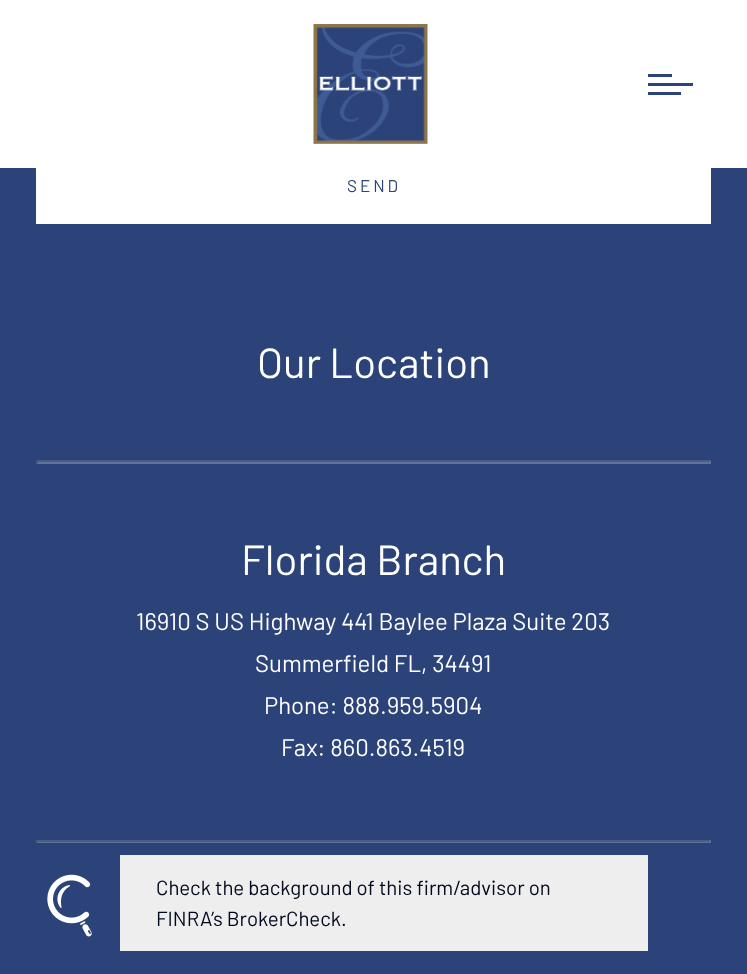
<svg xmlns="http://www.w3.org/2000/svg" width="747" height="974">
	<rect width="100%" height="100%" fill="#2B4378" />
	<rect x="0" y="0" width="747" height="168" fill="#FFFFFF" />
	<image x="313" y="24" width="115" height="120" href="assets/img1.png" />
	<rect x="648" y="83" width="45" height="3" fill="#2B4378" />
	<rect x="648" y="74" width="24" height="3" fill="#2B4378" />
	<rect x="648" y="92" width="33" height="3" fill="#2B4378" />
	<rect x="36" y="168" width="675" height="56" fill="#FFFFFF" />
	<text x="347" y="192" font-family="Barlow" font-size="17" letter-spacing="3" fill="#2B4378">SEND</text>
	<text x="257" y="378" font-family="Barlow" font-size="42" fill="#FFFFFF">Our Location</text>
	<path d="M36 460H711L710 462H38Z" fill="#4B5D85" />
	<path d="M711 460.5V463.5L709.5 462Z" fill="#FFFFFF" fill-opacity="0.25" />
	<path d="M711 464H36L38 462H710Z" fill="#FFFFFF" fill-opacity="0.25" />
	<path d="M36 463.5V460.5L37.5 462Z" fill="#4B5D85" />
	<text x="241" y="575" font-family="Barlow" font-size="42" fill="#FFFFFF">Florida Branch</text>
	<g font-family="Barlow" font-size="24" fill="#FFFFFF">
		<text x="136" y="630">16910 S US Highway 441 Baylee Plaza Suite 203</text>
		<text x="255" y="672">Summerfield FL, 34491</text>
		<text x="264" y="714">Phone: 888.959.5904</text>
		<text x="281" y="756">Fax: 860.863.4519</text>
	</g>
	<path d="M36 840H711L710 842H38Z" fill="#4B5D85" />
	<path d="M711 840V843L709.5 841.5Z" fill="#FFFFFF" fill-opacity="0.25" />
	<path d="M711 843H36L38 842H710Z" fill="#FFFFFF" fill-opacity="0.25" />
	<path d="M36 843V840L37.5 841.5Z" fill="#AAAAAA" fill-opacity="0.25" />
	<image x="47" y="874" width="45" height="63" href="assets/img2.png" />
	<rect x="120" y="855" width="528" height="96" fill="#EEEEEE" />
	<g font-family="Barlow" font-size="20.4" fill="#00091D">
		<text x="156" y="895">Check the background of this firm/advisor on</text>
		<text x="156" y="926">FINRA’s BrokerCheck.</text>
	</g>
</svg>
